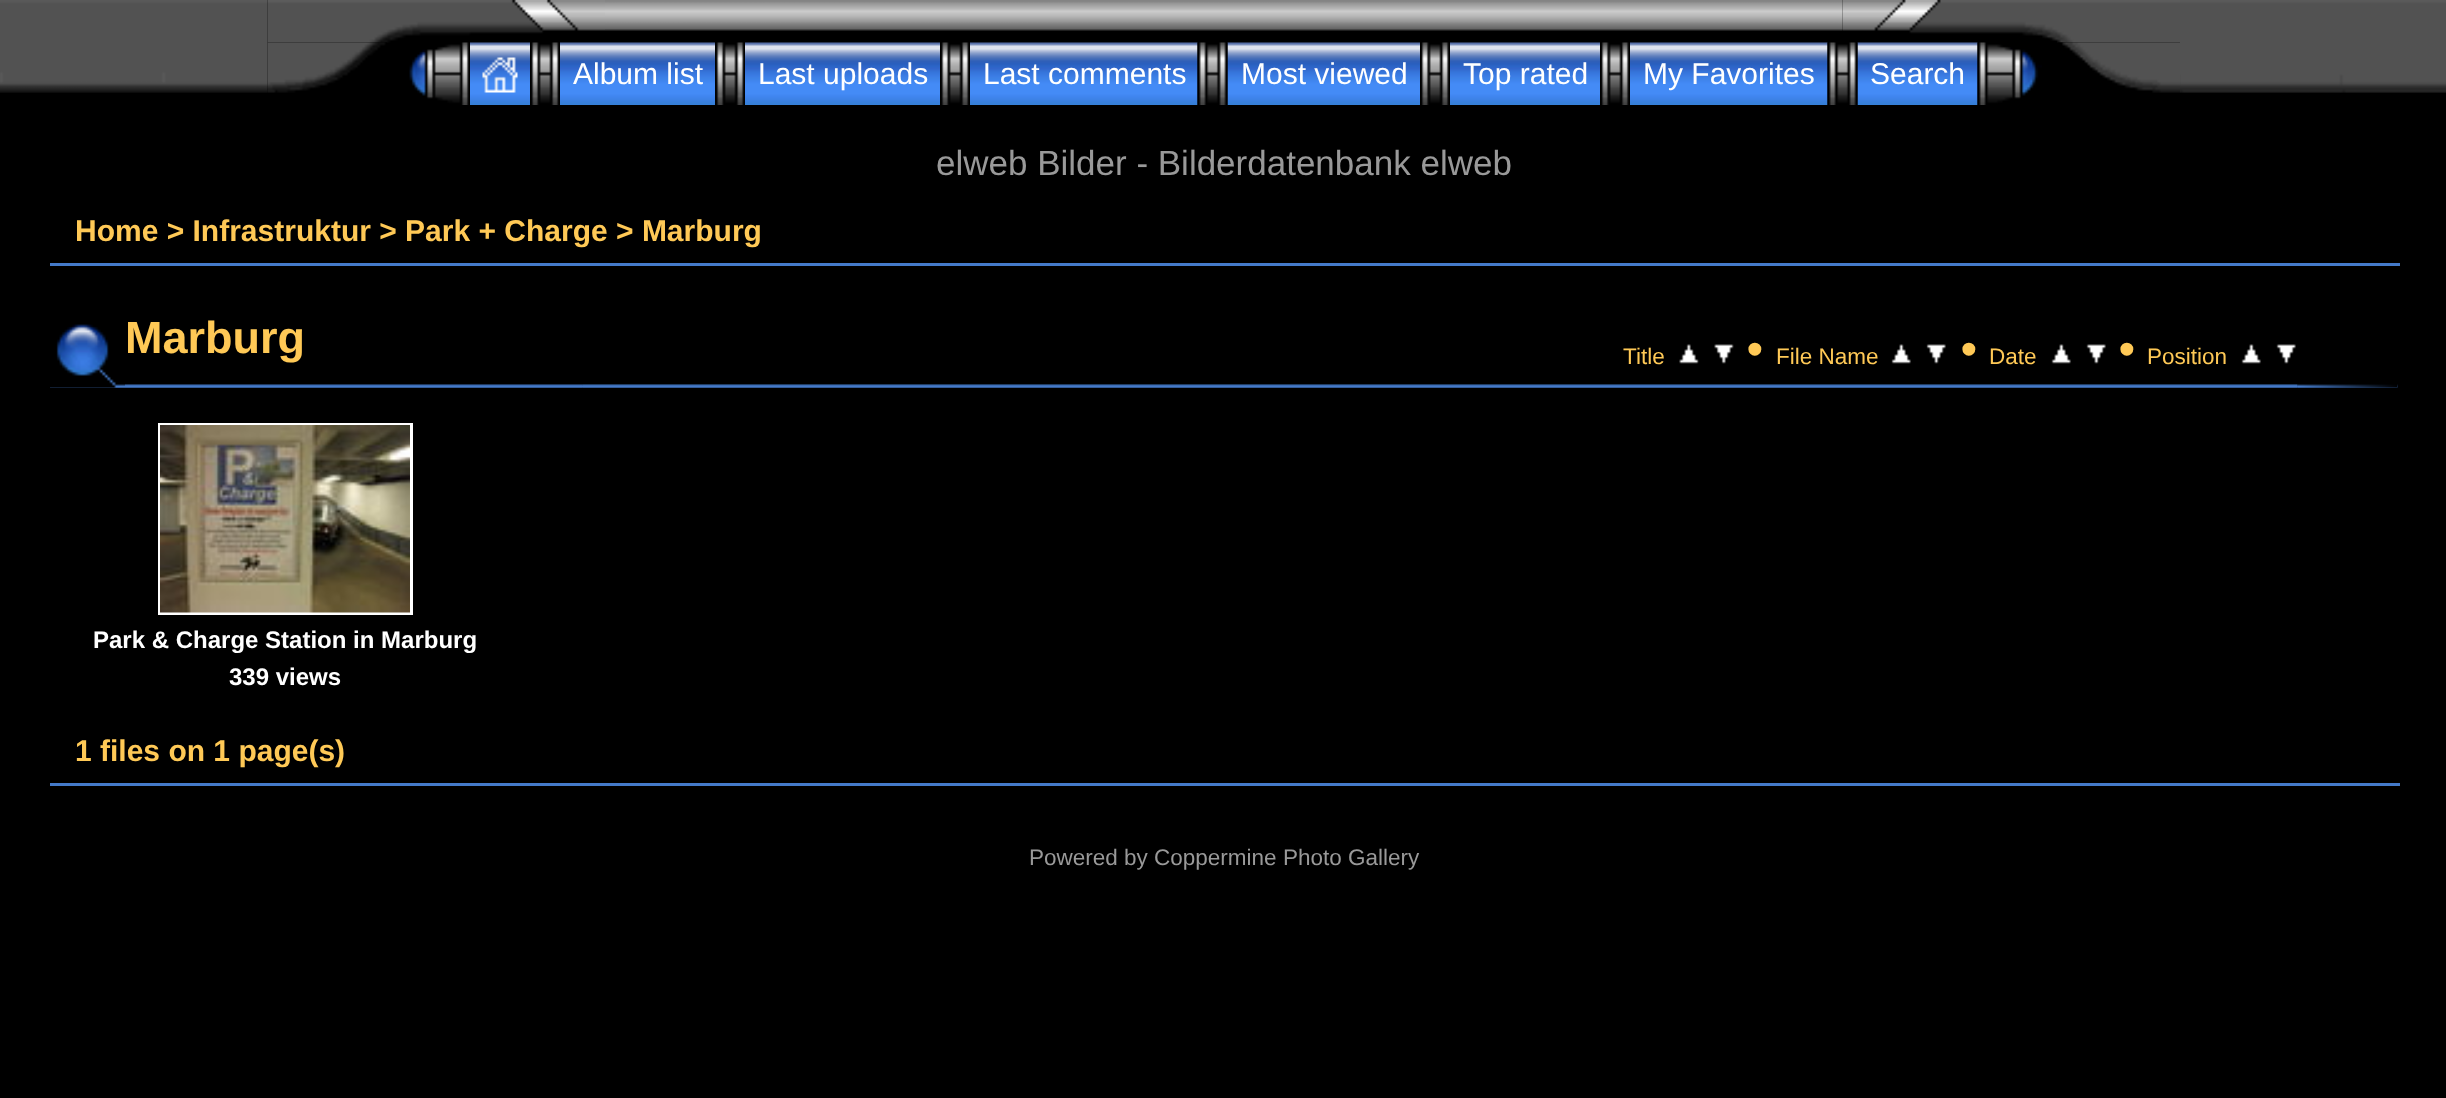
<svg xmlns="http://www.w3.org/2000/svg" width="2446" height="1098">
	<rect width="100%" height="100%" fill="#000000" />
	<image x="0" y="0" width="268" height="93" href="assets/img1.png" />
	<image x="267" y="0" width="338" height="43" href="assets/img2.png" />
	<image x="605" y="0" width="1238" height="31" href="assets/img3.png" />
	<image x="1842" y="0" width="338" height="43" href="assets/img4.png" />
	<image x="267" y="42" width="120" height="51" href="assets/img5.png" />
	<image x="409" y="42" width="60" height="63" href="assets/img6.png" />
	<image x="470" y="42" width="60" height="63" href="assets/img7.png" />
	<image x="482" y="57" width="36" height="36" href="assets/img8.png" />
	<image x="531" y="42" width="28" height="63" href="assets/img9.png" />
	<image x="560" y="42" width="155" height="63" href="assets/img10.png" />
	<text x="573" y="84" font-family="Liberation Sans" font-size="30" fill="#FFFFFF">Album list</text>
	<image x="716" y="42" width="28" height="63" href="assets/img9.png" />
	<image x="745" y="42" width="195" height="63" href="assets/img11.png" />
	<text x="758" y="84" font-family="Liberation Sans" font-size="30" fill="#FFFFFF">Last uploads</text>
	<image x="941" y="42" width="28" height="63" href="assets/img9.png" />
	<image x="970" y="42" width="228" height="63" href="assets/img12.png" />
	<text x="983" y="84" font-family="Liberation Sans" font-size="30" fill="#FFFFFF">Last comments</text>
	<image x="1227" y="42" width="193" height="63" href="assets/img14.png" />
	<image x="1197" y="42" width="31" height="63" href="assets/img13.png" />
	<text x="1241" y="84" font-family="Liberation Sans" font-size="30" fill="#FFFFFF">Most viewed</text>
	<image x="1421" y="42" width="28" height="63" href="assets/img15.png" />
	<image x="1450" y="42" width="150" height="63" href="assets/img16.png" />
	<text x="1463" y="84" font-family="Liberation Sans" font-size="30" fill="#FFFFFF">Top rated</text>
	<image x="1601" y="42" width="28" height="63" href="assets/img15.png" />
	<image x="1630" y="42" width="198" height="63" href="assets/img17.png" />
	<text x="1643" y="84" font-family="Liberation Sans" font-size="30" fill="#FFFFFF">My Favorites</text>
	<image x="1857" y="42" width="121" height="63" href="assets/img19.png" />
	<image x="1827" y="42" width="31" height="63" href="assets/img18.png" />
	<text x="1870" y="84" font-family="Liberation Sans" font-size="30" fill="#FFFFFF">Search</text>
	<image x="1977" y="42" width="65" height="63" href="assets/img20.png" />
	<image x="2058" y="42" width="122" height="51" href="assets/img21.png" />
	<image x="2180" y="0" width="266" height="93" href="assets/img22.png" />
	<text x="936" y="175" font-family="Liberation Sans" font-size="35" fill="#999999">elweb Bilder - Bilderdatenbank elweb</text>
	<rect x="50" y="263" width="2350" height="3" fill="#447AC9" />
	<text x="75" y="241" font-family="Liberation Sans" font-size="30" font-weight="700" fill="#FFC956">Home &gt; Infrastruktur &gt; Park + Charge &gt; Marburg</text>
	<image x="50" y="387" width="75" height="1" href="assets/img23.png" />
	<image x="50" y="324" width="75" height="64" href="assets/img24.png" />
	<image x="125" y="384" width="2173" height="4" href="assets/img25.png" />
	<image x="125" y="384" width="458" height="4" href="assets/img26.png" />
	<text x="125" y="353" font-family="Liberation Sans" font-size="45" font-weight="700" fill="#FFC956">Marburg</text>
	<image x="582" y="384" width="1716" height="4" href="assets/img27.png" />
	<text x="1623" y="364" font-family="Liberation Sans" font-size="22.5" fill="#FFC956">Title</text>
	<image x="1679" y="344" width="20" height="20" href="assets/img28.png" />
	<image x="1714" y="344" width="20" height="20" href="assets/img29.png" />
	<text x="1747" y="364" font-family="Liberation Sans" font-size="45" font-weight="700" fill="#FFC956">•</text>
	<text x="1776" y="364" font-family="Liberation Sans" font-size="22.5" fill="#FFC956">File Name</text>
	<image x="1891" y="344" width="20" height="20" href="assets/img30.png" />
	<image x="1926" y="344" width="20" height="20" href="assets/img31.png" />
	<text x="1961" y="364" font-family="Liberation Sans" font-size="45" font-weight="700" fill="#FFC956">•</text>
	<text x="1989" y="364" font-family="Liberation Sans" font-size="22.5" fill="#FFC956">Date</text>
	<image x="2051" y="344" width="20" height="20" href="assets/img32.png" />
	<image x="2086" y="344" width="20" height="20" href="assets/img33.png" />
	<text x="2119" y="364" font-family="Liberation Sans" font-size="45" font-weight="700" fill="#FFC956">•</text>
	<text x="2147" y="364" font-family="Liberation Sans" font-size="22.5" fill="#FFC956">Position</text>
	<image x="2241" y="344" width="20" height="20" href="assets/img32.png" />
	<image x="2276" y="344" width="20" height="20" href="assets/img33.png" />
	<image x="2297" y="384" width="101" height="4" href="assets/img34.png" />
	<image x="2297" y="384" width="101" height="4" href="assets/img35.png" />
	<rect x="159.5" y="424.5" width="252" height="189" fill="none" stroke="#FFFFFF" stroke-width="3" />
	<image x="160" y="425" width="250" height="188" href="assets/img36.png" />
	<g font-family="Liberation Sans" font-size="24" font-weight="700" fill="#FFFFFF">
		<text x="93" y="648">Park &amp; Charge Station in Marburg</text>
		<text x="229" y="685">339 views</text>
	</g>
	<rect x="50" y="783" width="2350" height="3" fill="#447AC9" />
	<text x="75" y="761" font-family="Liberation Sans" font-size="30" font-weight="700" fill="#FFC956">1 files on 1 page(s)</text>
	<text x="1029" y="865" font-family="Liberation Sans" font-size="22.5" fill="#999999">Powered by Coppermine Photo Gallery</text>
</svg>
